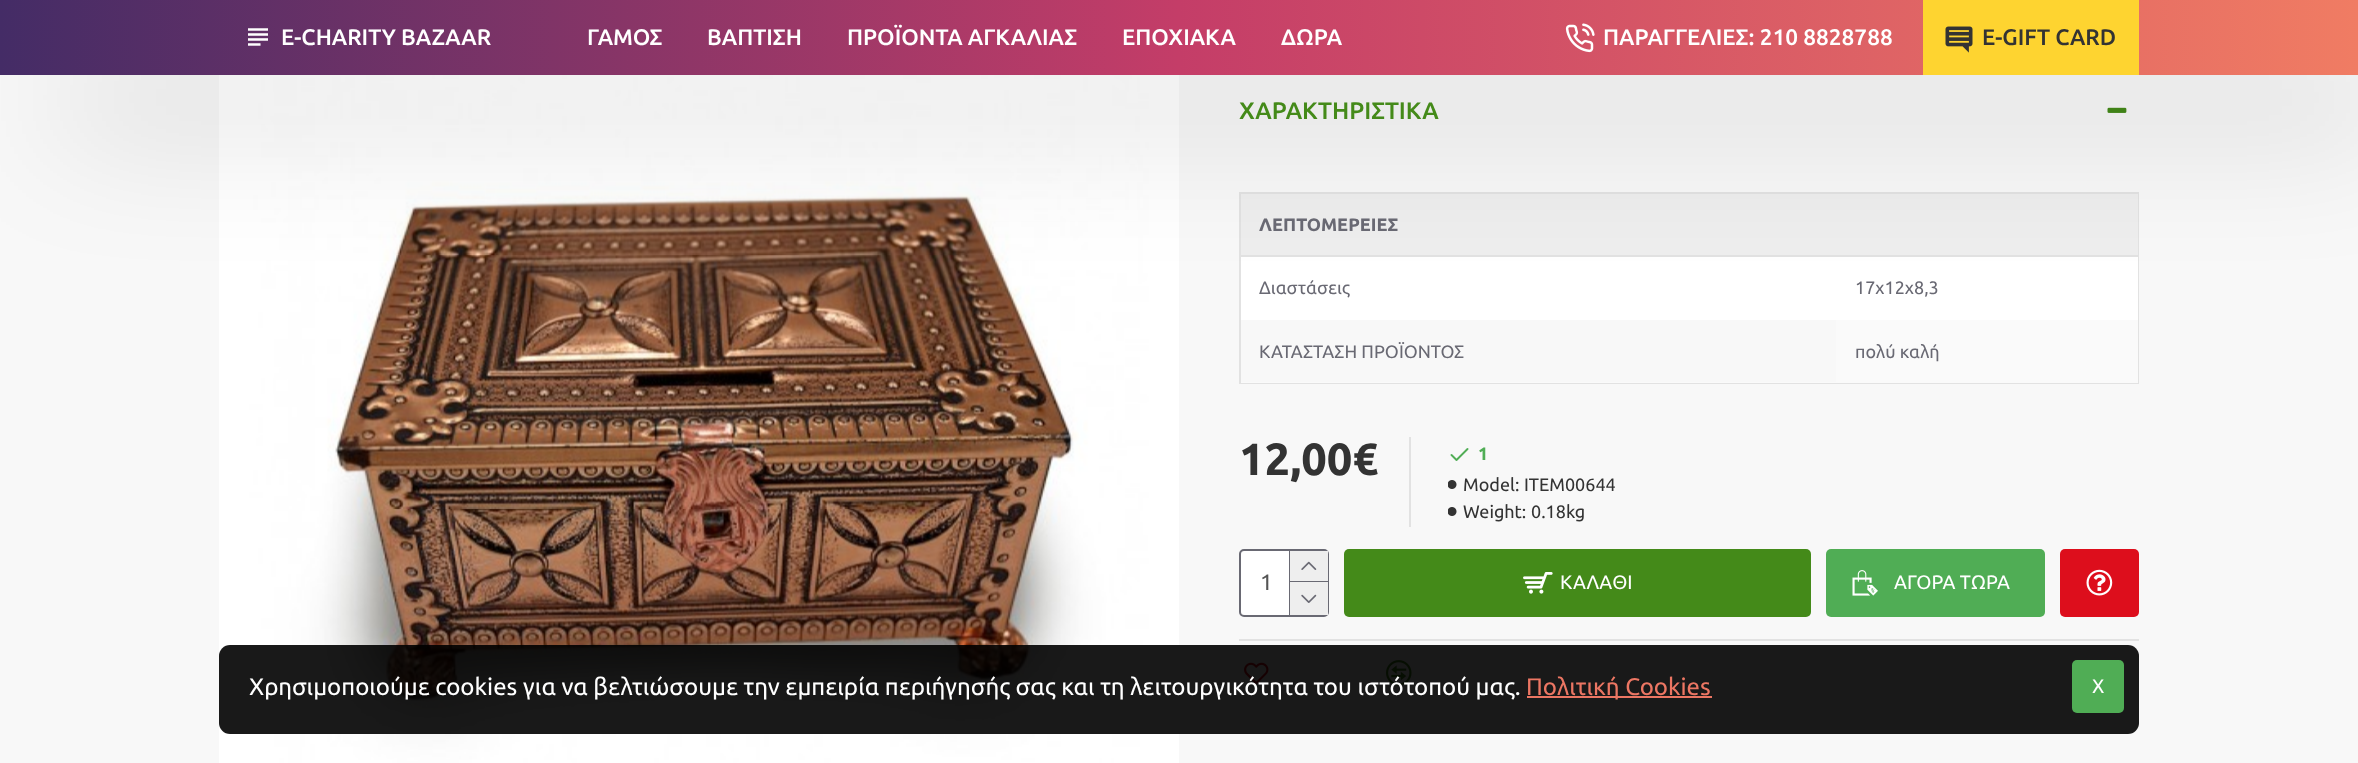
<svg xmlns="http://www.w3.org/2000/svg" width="2358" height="763">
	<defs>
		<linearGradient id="g1" gradientUnits="userSpaceOnUse" x1="2358" y1="38" x2="0" y2="37"><stop offset="0" stop-color="#F07C63" /><stop offset="0.5" stop-color="#C43D68" /><stop offset="1" stop-color="#442C66" /></linearGradient>
	</defs>
	<rect width="100%" height="100%" fill="#F8F8F8" />
	<rect x="234" y="-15" width="930" height="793" fill="none" stroke="#FFFFFF" stroke-width="30" />
	<image x="249" y="75" width="900" height="688" href="assets/img4.png" />
	<image x="2107" y="107" width="20" height="6" href="assets/img5.png" />
	<rect x="1240" y="193" width="898" height="190" fill="none" stroke="#E2E2E2" stroke-width="2" />
	<rect x="1241" y="194" width="897" height="61" fill="#EEEEEE" />
	<rect x="1241" y="255" width="897" height="2" fill="#E2E2E2" />
	<rect x="1241" y="257" width="897" height="63" fill="#FFFFFF" />
	<rect x="1836" y="320" width="302" height="63" fill="#FAFAFA" />
	<rect x="60" y="75" width="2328" height="45" fill="#000000" fill-opacity="0.2" filter="blur(67.5px)" />
	<rect x="0" y="0" width="2358" height="75" fill="url(#g1)" />
	<image x="248" y="28" width="20" height="18" href="assets/img1.png" />
	<g font-family="Ubuntu" font-size="22.5" font-weight="500" fill="#FFFFFF">
		<text x="281" y="45">E-CHARITY BAZAAR</text>
		<text x="587" y="45">ΓΑΜΟΣ</text>
		<text x="707" y="45">ΒΑΠΤΙΣΗ</text>
		<text x="847" y="45">ΠΡΟΪΟΝΤΑ ΑΓΚΑΛΙΑΣ</text>
		<text x="1122" y="45">ΕΠΟΧΙΑΚΑ</text>
		<text x="1281" y="45">ΔΩΡΑ</text>
	</g>
	<image x="1565" y="23" width="30" height="30" href="assets/img2.png" />
	<text x="1603" y="45" font-family="Ubuntu" font-size="22.5" font-weight="500" fill="#FFFFFF">ΠΑΡΑΓΓΕΛΙΕΣ: 210 8828788</text>
	<rect x="1923" y="0" width="216" height="75" fill="#FED430" />
	<image x="1945" y="26" width="28" height="27" href="assets/img3.png" />
	<text x="1982" y="45" font-family="Ubuntu" font-size="22.5" font-weight="500" fill="#333333">E-GIFT CARD</text>
	<text x="1239" y="119" font-family="Ubuntu" font-size="24" font-weight="500" fill="#448A19">ΧΑΡΑΚΤΗΡΙΣΤΙΚΑ</text>
	<text x="1259" y="231" font-family="Ubuntu" font-size="18" font-weight="700" fill="#696973">ΛΕΠΤΟΜΕΡΕΙΕΣ</text>
	<g font-family="Ubuntu" font-size="18" fill="#696973">
		<text x="1259" y="294">Διαστάσεις</text>
		<text x="1855" y="294">17x12x8,3</text>
	</g>
	<rect x="1241" y="382" width="595" height="1" fill="#FAFAFA" />
	<g font-family="Ubuntu" font-size="18" fill="#696973">
		<text x="1259" y="358">ΚΑΤΑΣΤΑΣΗ ΠΡΟΪΟΝΤΟΣ</text>
		<text x="1855" y="358">πολύ καλή</text>
	</g>
	<text x="1239" y="475" font-family="Ubuntu" font-size="45" font-weight="700" fill="#333333">12,00€</text>
	<rect x="1409" y="437" width="2" height="90" fill="#E2E2E2" />
	<image x="1450" y="448" width="19" height="13" href="assets/img6.png" />
	<text x="1478" y="460" font-family="Ubuntu" font-size="18" font-weight="700" fill="#50AD55">1</text>
	<image x="1448" y="480" width="9" height="9" href="assets/img7.png" />
	<g font-family="Ubuntu" font-size="18" fill="#333333">
		<text x="1463" y="491">Model:</text>
		<text x="1524" y="491">ITEM00644</text>
	</g>
	<image x="1448" y="507" width="9" height="9" href="assets/img7.png" />
	<g font-family="Ubuntu" font-size="18" fill="#333333">
		<text x="1463" y="518">Weight:</text>
		<text x="1531" y="518">0.18kg</text>
	</g>
	<rect x="1240" y="550" width="88" height="66" rx="4" fill="none" stroke="#696973" stroke-width="2" />
	<rect x="1241" y="551" width="87" height="64" rx="5" fill="#FFFFFF" />
	<text x="1260" y="590" font-family="Ubuntu" font-size="22.5" fill="#555555">1</text>
	<rect x="1289" y="551" width="1" height="64" fill="#696973" />
	<rect x="1290" y="551" width="38" height="30" fill="#EEEEEE" />
	<rect x="1290" y="581" width="38" height="1" fill="#696973" />
	<image x="1301" y="561" width="16" height="9" href="assets/img8.png" />
	<rect x="1290" y="582" width="38" height="33" fill="#EEEEEE" />
	<image x="1301" y="594" width="16" height="9" href="assets/img9.png" />
	<rect x="1344" y="549" width="467" height="68" rx="5" fill="#448A19" />
	<image x="1523" y="572" width="30" height="22" href="assets/img10.png" />
	<text x="1560" y="589" font-family="Ubuntu" font-size="19.5" fill="#FFFFFF">ΚΑΛΑΘΙ</text>
	<rect x="1826" y="549" width="219" height="68" rx="5" fill="#50AD55" />
	<image x="1852" y="570" width="26" height="26" href="assets/img11.png" />
	<text x="1894" y="589" font-family="Ubuntu" font-size="19.5" fill="#FFFFFF">ΑΓΟΡΑ ΤΩΡΑ</text>
	<rect x="2060" y="549" width="79" height="68" rx="5" fill="#DD0E1C" />
	<image x="2086" y="569" width="27" height="27" href="assets/img12.png" />
	<rect x="1239" y="639" width="900" height="2" fill="#E2E2E2" />
	<image x="1244" y="662" width="25" height="23" href="assets/img13.png" />
	<image x="1386" y="660" width="26" height="26" href="assets/img14.png" />
	<rect x="219" y="645" width="1920" height="89" rx="11" fill="#000000" fill-opacity="0.9" />
	<text x="249" y="695" font-family="Ubuntu" font-size="24" fill="#FFFFFF">Xρησιμοποιούμε cookies για να βελτιώσουμε την εμπειρία περιήγησής σας και τη λειτουργικότητα του ιστότοπού μας.</text>
	<rect x="1527" y="696" width="185" height="2" fill="#EC7663" />
	<text x="1526" y="695" font-family="Ubuntu" font-size="24" fill="#EC7663">Πολιτική Cookies</text>
	<rect x="2072" y="660" width="52" height="53" rx="5" fill="#50AD55" />
	<text x="2092" y="693" font-family="Ubuntu" font-size="19.5" fill="#FFFFFF">X</text>
</svg>
